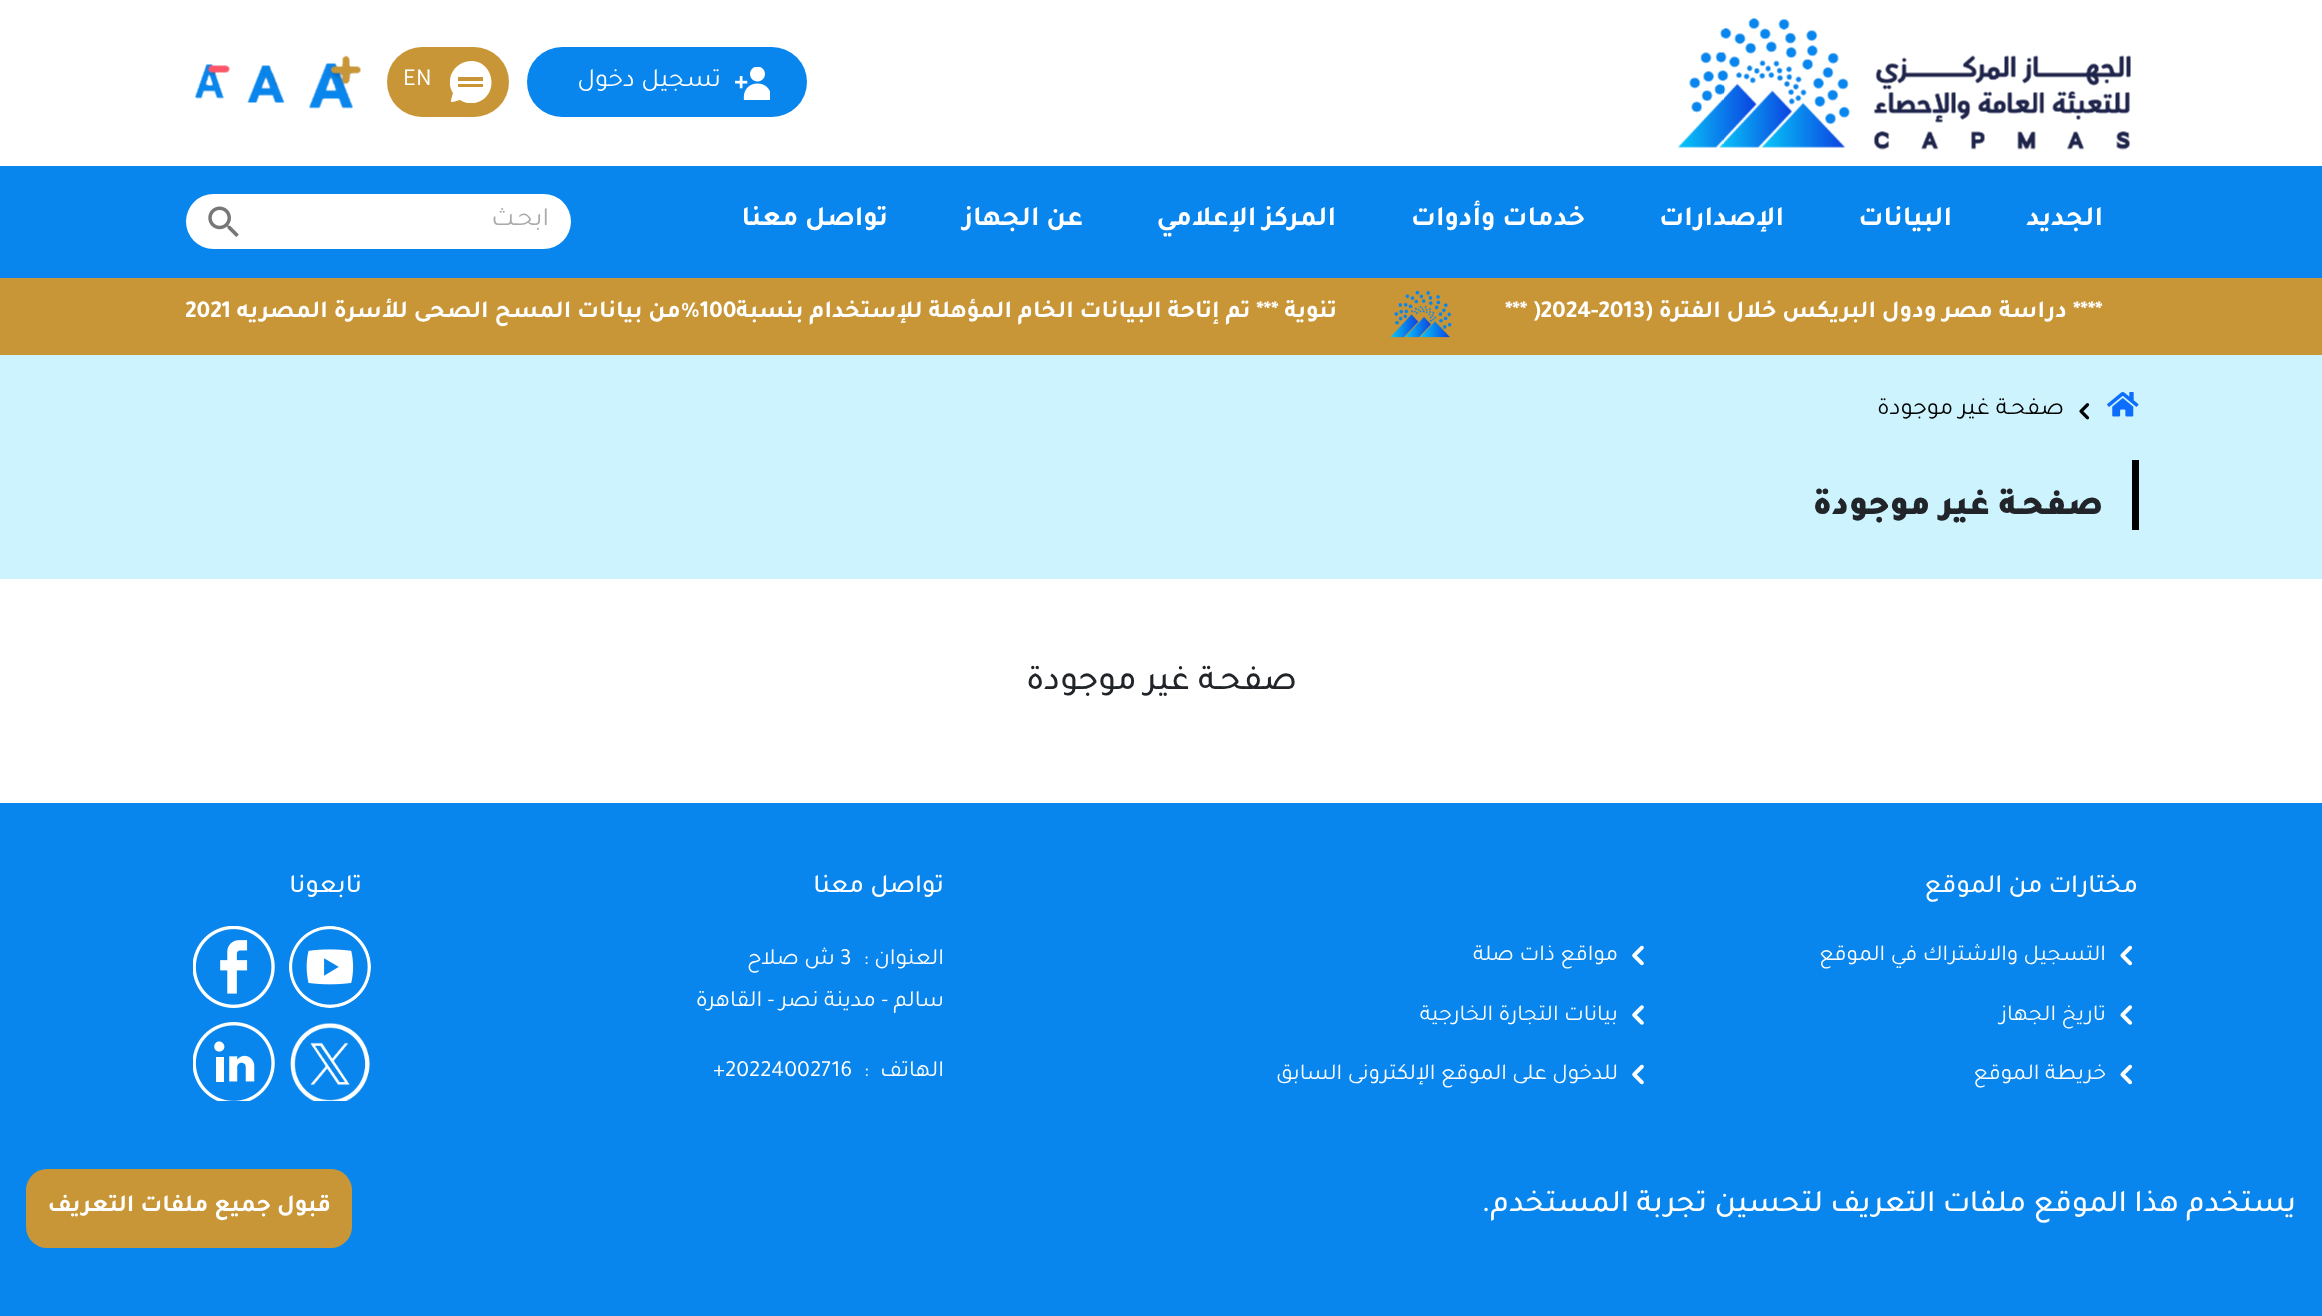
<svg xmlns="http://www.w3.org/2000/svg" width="2322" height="1316">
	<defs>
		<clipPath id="clip1"><rect x="450" y="61" width="42" height="42" /></clipPath>
		<clipPath id="clip2"><rect x="186" y="291" width="1953" height="47" /></clipPath>
	</defs>
	<rect width="100%" height="100%" fill="#FFFFFF" />
	<image x="1678" y="18" width="453" height="132" href="assets/img1.png" />
	<rect x="527" y="47" width="280" height="70" rx="35" fill="#0986ED" />
	<image x="735" y="67" width="35" height="33" href="assets/img2.png" />
	<text x="721" y="86" font-family="Tajawal" font-size="26.25" direction="rtl" fill="#FFFFFF">تسجيل دخول</text>
	<rect x="387" y="47" width="122" height="70" rx="35" fill="#C89637" />
	<g clip-path="url(#clip1)">
		<path d="M471 61C455 61 444 79 453 93C450 104 449 103 460 100C465 103 470 104 475 103C500 97 495 61 471 61M483 87H458V84H483ZM483 81H458V77H483Z" fill="#FFFFFF" />
	</g>
	<text x="403" y="85" font-family="Tajawal" font-size="24.5" fill="#FFFFFF">EN</text>
	<image x="309" y="55" width="52" height="54" href="assets/img3.png" />
	<image x="247" y="65" width="38" height="38" href="assets/img4.png" />
	<image x="195" y="63" width="35" height="36" href="assets/img5.png" />
	<rect x="0" y="166" width="2322" height="112" fill="#0986ED" />
	<g font-family="Tajawal" font-size="28" font-weight="700" direction="rtl" fill="#FFFFFF">
		<text x="2103" y="225">الجديد</text>
		<text x="1952" y="225">البيانات</text>
		<text x="1784" y="225">الإصدارات</text>
		<text x="1585" y="225">خدمات وأدوات</text>
		<text x="1336" y="225">المركز الإعلامي</text>
		<text x="1083" y="225">عن الجهاز</text>
		<text x="888" y="225">تواصل معنا</text>
	</g>
	<rect x="186" y="194" width="385" height="55" rx="27.5" fill="#FFFFFF" />
	<text x="549" y="225" font-family="Tajawal" font-size="26.25" direction="rtl" fill="#AAAAAA">ابحـث</text>
	<image x="208" y="206" width="31" height="31" href="assets/img6.png" />
	<rect x="0" y="278" width="2322" height="77" fill="#C89637" />
	<text x="2073" y="317" font-family="Tajawal" font-size="24.5" font-weight="700" fill="#FFFFFF">****</text>
	<text x="2067" y="317" font-family="Tajawal" font-size="24.5" font-weight="700" direction="rtl" fill="#FFFFFF">دراسة مصر ودول البريكس خلال الفترة (</text>
	<text x="1505" y="317" font-family="Tajawal" font-size="24.5" font-weight="700" fill="#FFFFFF">*** )2024-2013</text>
	<image x="1390" y="290" width="62" height="48" href="assets/img7.png" />
	<text x="1337" y="317" font-family="Tajawal" font-size="24.5" font-weight="700" direction="rtl" fill="#FFFFFF">تنوية *** تم إتاحة البيانات الخام المؤهلة للإستخدام بنسبة</text>
	<text x="700" y="317" font-family="Tajawal" font-size="24.5" font-weight="700" fill="#FFFFFF">100</text>
	<text x="700" y="317" font-family="Tajawal" font-size="24.5" font-weight="700" direction="rtl" fill="#FFFFFF">%من بيانات المسح الصحى للأسرة المصريه</text>
	<g clip-path="url(#clip2)">
		<text x="185" y="317" font-family="Tajawal" font-size="24.5" font-weight="700" fill="#FFFFFF">2021</text>
	</g>
	<rect x="0" y="355" width="2322" height="224" fill="#CDF4FE" />
	<image x="2107" y="392" width="32" height="25" href="assets/img8.png" />
	<image x="2079" y="403" width="11" height="17" href="assets/img9.png" />
	<text x="2064" y="414" font-family="Tajawal" font-size="24.5" direction="rtl" fill="#000000">صفحـة غير موجودة</text>
	<rect x="2132" y="460" width="7" height="70" fill="#000000" />
	<text x="2103" y="514" font-family="Tajawal" font-size="35" font-weight="900" direction="rtl" fill="#212529">صفحـة غير موجودة</text>
	<text x="1297" y="689" font-family="Tajawal" font-size="35" font-weight="500" direction="rtl" fill="#212529">صفحـة غير موجودة</text>
	<rect x="0" y="803" width="2322" height="513" fill="#0986ED" />
	<text x="2138" y="892" font-family="Tajawal" font-size="26.25" font-weight="500" direction="rtl" fill="#FFFFFF">مختارات من الموقع</text>
	<image x="2120" y="945" width="13" height="21" href="assets/img10.png" />
	<text x="2106" y="960" font-family="Tajawal" font-size="22.75" direction="rtl" fill="#FFFFFF">التسجيل والاشتراك في الموقع</text>
	<image x="1632" y="945" width="12" height="21" href="assets/img11.png" />
	<text x="1618" y="960" font-family="Tajawal" font-size="22.75" direction="rtl" fill="#FFFFFF">مواقع ذات صلة</text>
	<image x="2120" y="1005" width="13" height="20" href="assets/img12.png" />
	<text x="2106" y="1020" font-family="Tajawal" font-size="22.75" direction="rtl" fill="#FFFFFF">تاريخ الجهاز</text>
	<image x="1632" y="1005" width="12" height="20" href="assets/img13.png" />
	<text x="1618" y="1020" font-family="Tajawal" font-size="22.75" direction="rtl" fill="#FFFFFF">بيانات التجارة الخارجية</text>
	<image x="2120" y="1064" width="13" height="21" href="assets/img10.png" />
	<text x="2106" y="1079" font-family="Tajawal" font-size="22.75" direction="rtl" fill="#FFFFFF">خريطة الموقع</text>
	<image x="1632" y="1064" width="12" height="21" href="assets/img11.png" />
	<text x="1618" y="1079" font-family="Tajawal" font-size="22.75" direction="rtl" fill="#FFFFFF">للدخول على الموقع الإلكترونى السابق</text>
	<text x="944" y="892" font-family="Tajawal" font-size="26.25" font-weight="500" direction="rtl" fill="#FFFFFF">تواصل معنا</text>
	<text x="944" y="964" font-family="Tajawal" font-size="23.25" direction="rtl" fill="#FFFFFF">العنوان :</text>
	<text x="840" y="964" font-family="Tajawal" font-size="23.25" fill="#FFFFFF">3</text>
	<g font-family="Tajawal" font-size="23.25" direction="rtl" fill="#FFFFFF">
		<text x="835" y="964">ش صلاح</text>
		<text x="944" y="1006">سالم - مدينة نصر - القاهرة</text>
		<text x="944" y="1076" xml:space="preserve">الهاتف  :</text>
	</g>
	<text x="713" y="1076" font-family="Tajawal" font-size="23.25" fill="#FFFFFF">+20224002716</text>
	<text x="362" y="892" font-family="Tajawal" font-size="26.25" font-weight="500" direction="rtl" fill="#FFFFFF">تابعونا</text>
	<image x="289" y="926" width="82" height="82" href="assets/img14.png" />
	<image x="193" y="926" width="82" height="82" href="assets/img15.png" />
	<image x="290" y="1023" width="80" height="78" href="assets/img16.png" />
	<image x="193" y="1022" width="82" height="79" href="assets/img17.png" />
	<text x="2296" y="1211" font-family="Tajawal" font-size="31.5" font-weight="500" direction="rtl" fill="#FFFFFF">يستخدم هذا الموقع ملفات التعريف لتحسين تجربة المستخدم.</text>
	<rect x="26" y="1169" width="326" height="79" rx="21" fill="#C89637" />
	<text x="331" y="1211" font-family="Tajawal" font-size="24.5" font-weight="700" direction="rtl" fill="#FFFFFF">قبول جميع ملفات التعريف</text>
</svg>
